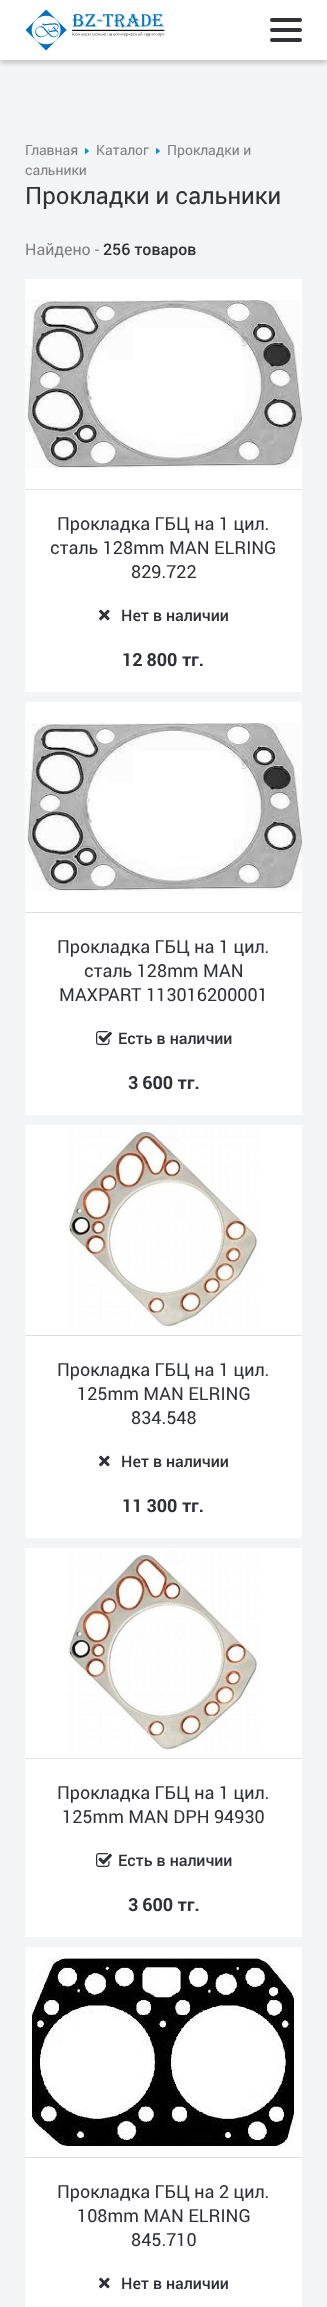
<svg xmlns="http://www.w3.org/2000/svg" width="327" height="2307">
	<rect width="100%" height="100%" fill="#F3F4F5" />
	<rect x="0" y="3" width="327" height="60" fill="#000000" fill-opacity="0.2" filter="blur(2.5px)" />
	<rect x="0" y="0" width="327" height="60" fill="#FFFFFF" />
	<image x="25" y="9" width="140" height="42" href="assets/img1.png" />
	<rect x="270" y="28" width="32" height="4" rx="2" fill="#2F3137" />
	<rect x="270" y="18" width="32" height="4" rx="2" fill="#2F3137" />
	<rect x="270" y="38" width="32" height="4" rx="2" fill="#2F3137" />
	<text x="25" y="155" font-family="Roboto" font-size="14" fill="#7F7F80">Главная</text>
	<image x="85" y="148" width="4" height="6" href="assets/img2.png" />
	<text x="96" y="155" font-family="Roboto" font-size="14" fill="#7F7F80">Каталог</text>
	<image x="156" y="148" width="4" height="6" href="assets/img2.png" />
	<g font-family="Roboto" font-size="14" fill="#7F7F80">
		<text x="167" y="155">Прокладки и</text>
		<text x="25" y="175">сальники</text>
	</g>
	<text x="25" y="204" font-family="Roboto" font-size="24" fill="#2F3137">Прокладки и сальники</text>
	<text x="25" y="255" font-family="Roboto" font-size="16" fill="#7F7F80">Найдено -</text>
	<text x="103" y="255" font-family="Roboto" font-size="16" font-weight="500" fill="#2F3137">256 товаров</text>
	<rect x="25" y="279" width="277" height="413" fill="#FFFFFF" />
	<rect x="25" y="489" width="277" height="1" fill="#E1E1E1" />
	<image x="25" y="300" width="277" height="168" href="assets/img3.png" />
	<g font-family="Roboto" font-size="18" fill="#2F3137">
		<text x="57" y="530">Прокладка ГБЦ на 1 цил.</text>
		<text x="50" y="554">сталь 128mm MAN ELRING</text>
		<text x="131" y="578">829.722</text>
	</g>
	<image x="99" y="609" width="11" height="12" href="assets/img4.png" />
	<text x="121" y="621" font-family="Roboto" font-size="16" font-weight="500" fill="#2F3137">Нет в наличии</text>
	<text x="122" y="666" font-family="Roboto" font-size="18" font-weight="700" fill="#2F3137">12 800 тг.</text>
	<rect x="25" y="702" width="277" height="413" fill="#FFFFFF" />
	<rect x="25" y="912" width="277" height="1" fill="#E1E1E1" />
	<image x="25" y="723" width="277" height="168" href="assets/img3.png" />
	<g font-family="Roboto" font-size="18" fill="#2F3137">
		<text x="57" y="953">Прокладка ГБЦ на 1 цил.</text>
		<text x="84" y="977">сталь 128mm MAN</text>
		<text x="59" y="1001">MAXPART 113016200001</text>
	</g>
	<image x="96" y="1031" width="16" height="14" href="assets/img5.png" />
	<text x="118" y="1044" font-family="Roboto" font-size="16" font-weight="500" fill="#2F3137">Есть в наличии</text>
	<text x="128" y="1089" font-family="Roboto" font-size="18" font-weight="700" fill="#2F3137">3 600 тг.</text>
	<rect x="25" y="1125" width="277" height="413" fill="#FFFFFF" />
	<rect x="25" y="1335" width="277" height="1" fill="#E1E1E1" />
	<image x="65" y="1126" width="196" height="202" href="assets/img6.png" />
	<g font-family="Roboto" font-size="18" fill="#2F3137">
		<text x="57" y="1376">Прокладка ГБЦ на 1 цил.</text>
		<text x="77" y="1400">125mm MAN ELRING</text>
		<text x="131" y="1424">834.548</text>
	</g>
	<image x="99" y="1455" width="11" height="12" href="assets/img4.png" />
	<text x="121" y="1467" font-family="Roboto" font-size="16" font-weight="500" fill="#2F3137">Нет в наличии</text>
	<text x="122" y="1512" font-family="Roboto" font-size="18" font-weight="700" fill="#2F3137">11 300 тг.</text>
	<rect x="25" y="1548" width="277" height="389" fill="#FFFFFF" />
	<rect x="25" y="1758" width="277" height="1" fill="#E1E1E1" />
	<image x="65" y="1549" width="196" height="202" href="assets/img6.png" />
	<g font-family="Roboto" font-size="18" fill="#2F3137">
		<text x="57" y="1799">Прокладка ГБЦ на 1 цил.</text>
		<text x="62" y="1823">125mm MAN DPH 94930</text>
	</g>
	<image x="96" y="1853" width="16" height="14" href="assets/img5.png" />
	<text x="118" y="1866" font-family="Roboto" font-size="16" font-weight="500" fill="#2F3137">Есть в наличии</text>
	<text x="128" y="1911" font-family="Roboto" font-size="18" font-weight="700" fill="#2F3137">3 600 тг.</text>
	<rect x="25" y="1947" width="277" height="360" fill="#FFFFFF" />
	<rect x="25" y="2157" width="277" height="1" fill="#E1E1E1" />
	<image x="31" y="1957" width="265" height="190" href="assets/img7.png" />
	<g font-family="Roboto" font-size="18" fill="#2F3137">
		<text x="57" y="2198">Прокладка ГБЦ на 2 цил.</text>
		<text x="77" y="2222">108mm MAN ELRING</text>
		<text x="131" y="2246">845.710</text>
	</g>
	<image x="99" y="2277" width="11" height="12" href="assets/img4.png" />
	<text x="121" y="2289" font-family="Roboto" font-size="16" font-weight="500" fill="#2F3137">Нет в наличии</text>
</svg>
